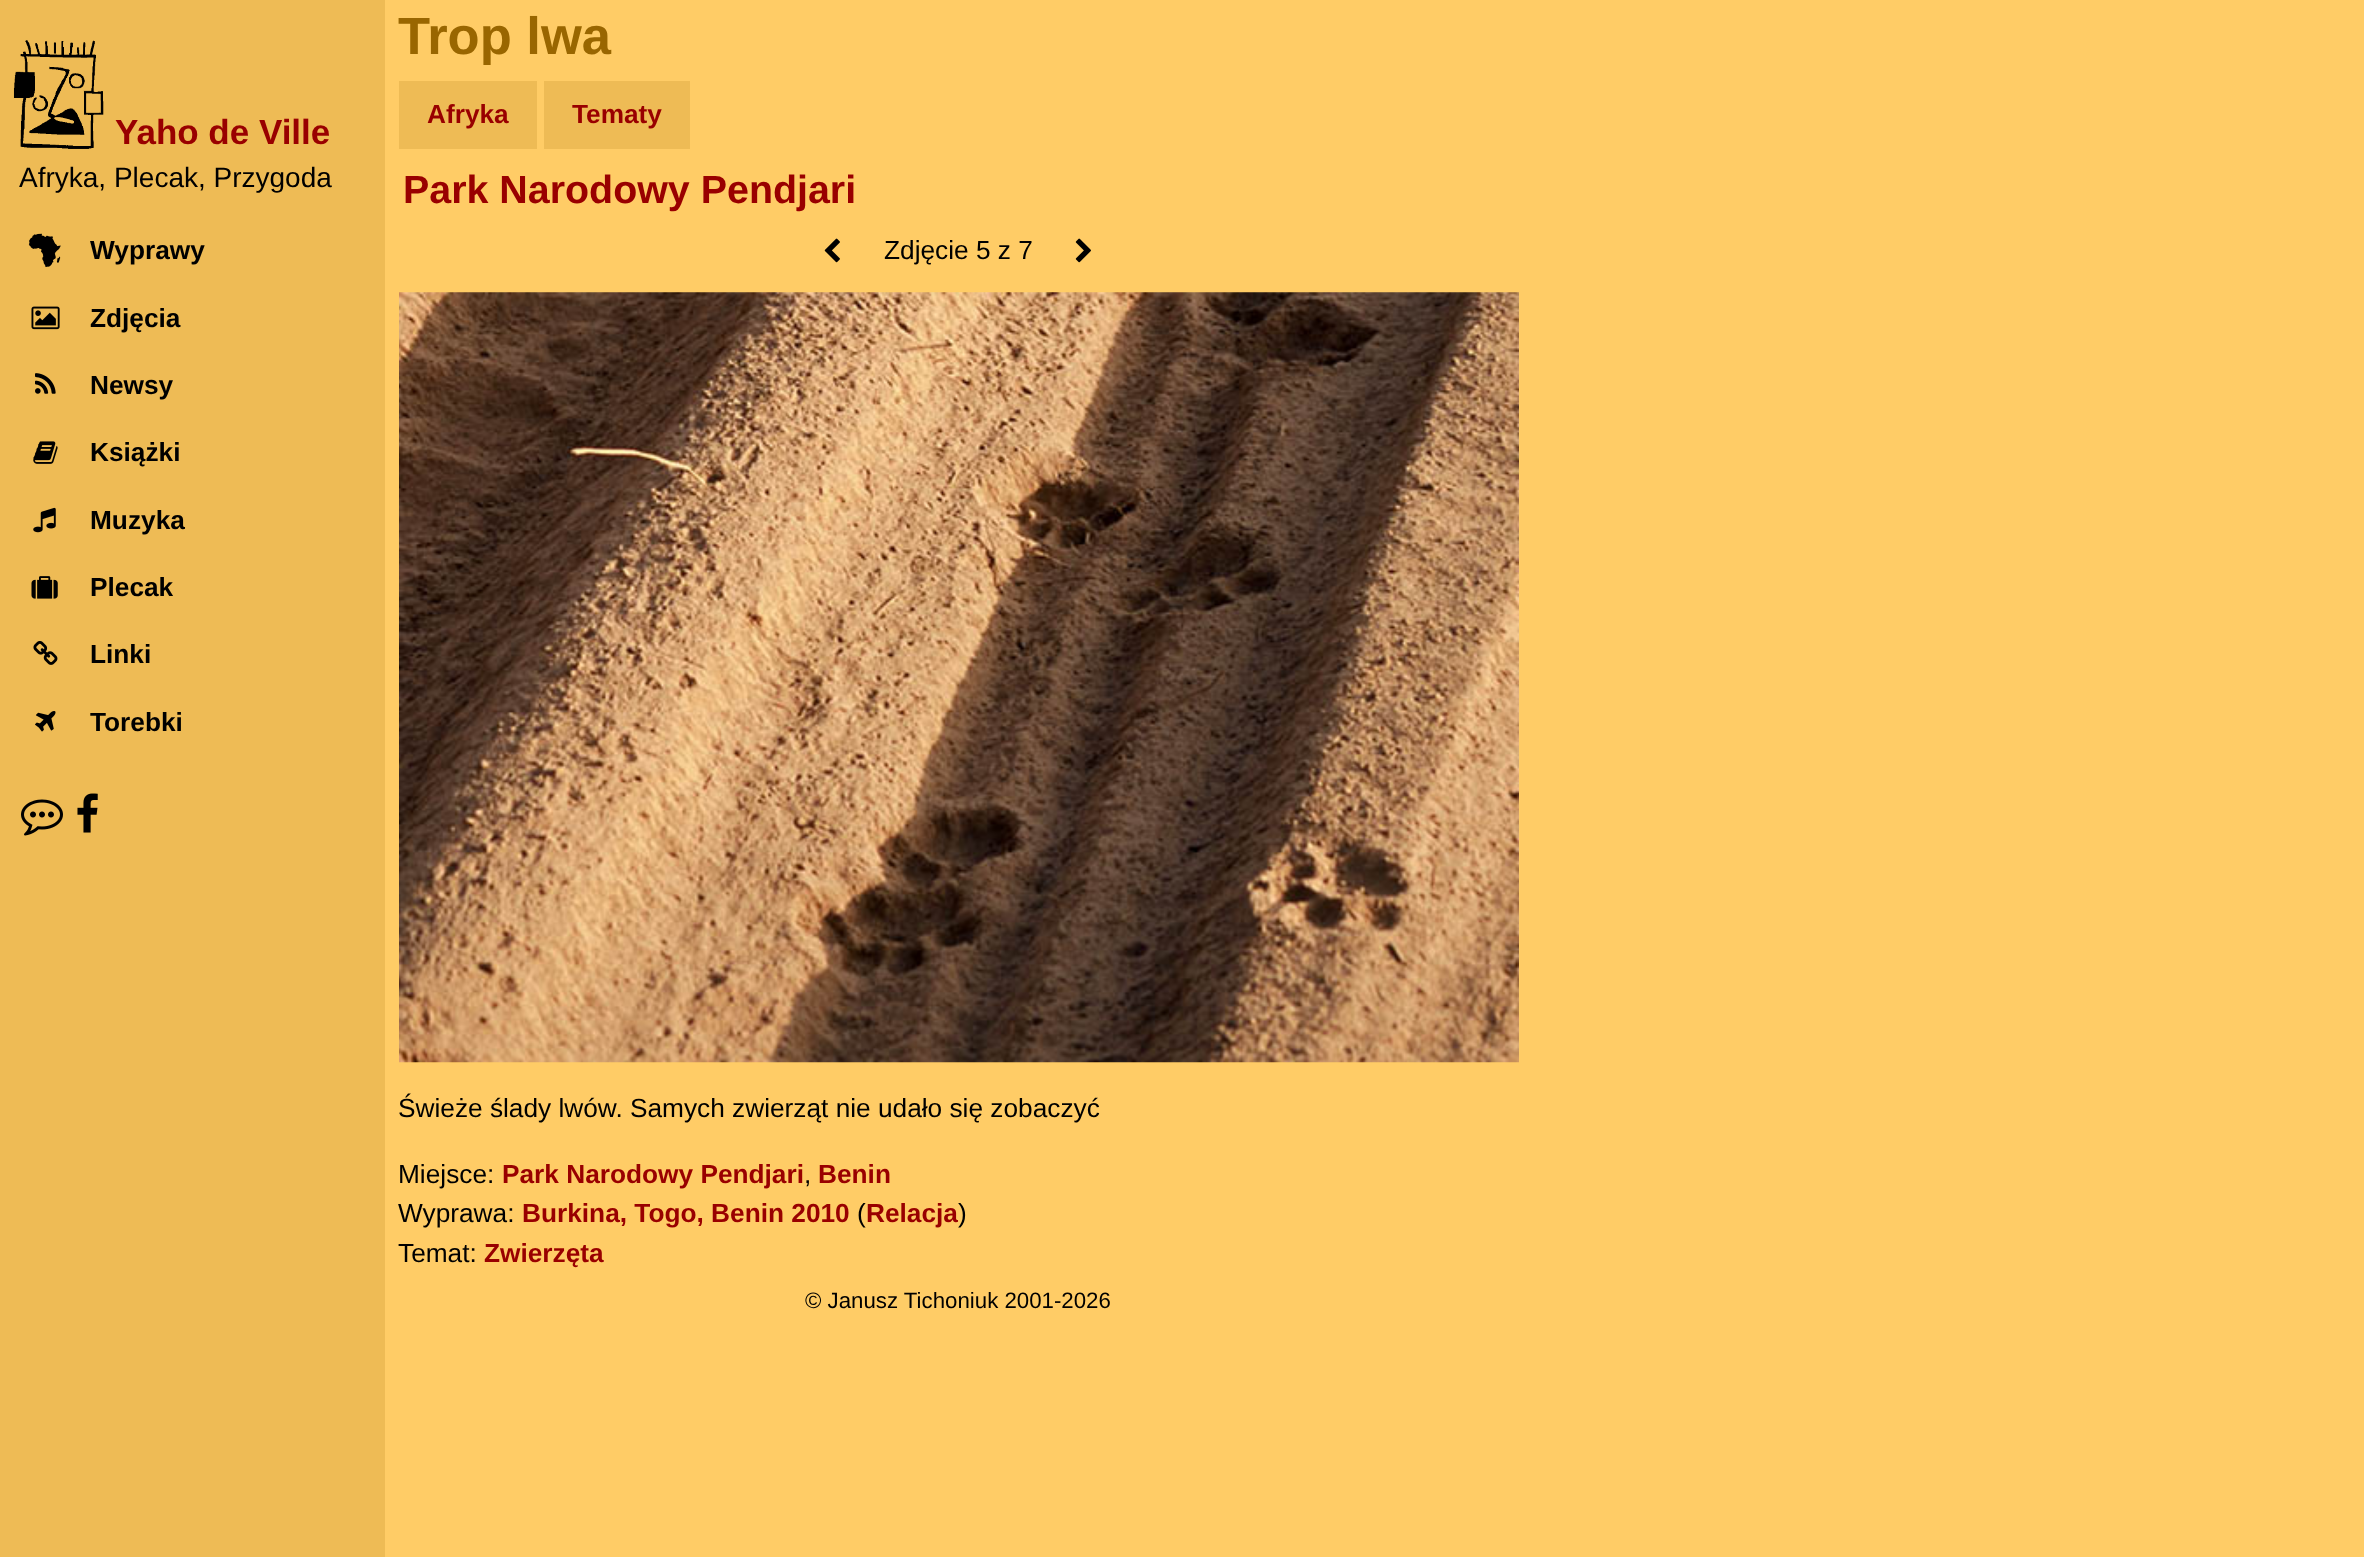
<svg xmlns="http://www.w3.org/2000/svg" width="2364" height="1557">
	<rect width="100%" height="100%" fill="#FFCC66" />
	<rect x="0" y="0" width="385" height="1557" fill="#EEBB55" />
	<image x="13" y="40" width="91" height="109" href="assets/img1.png" />
	<text x="115" y="144" font-family="Liberation Sans" font-size="35" font-weight="700" fill="#990000">Yaho de Ville</text>
	<text x="19" y="187" font-family="Liberation Sans" font-size="28" fill="#000000">Afryka, Plecak, Przygoda</text>
	<image x="28" y="233" width="33" height="34" href="assets/img2.png" />
	<text x="90" y="259" font-family="Liberation Sans" font-size="26.25" font-weight="700" fill="#000000">Wyprawy</text>
	<image x="31" y="306" width="29" height="24" href="assets/img3.png" />
	<text x="90" y="327" font-family="Liberation Sans" font-size="26.25" font-weight="700" fill="#000000">Zdjęcia</text>
	<image x="35" y="373" width="21" height="21" href="assets/img4.png" />
	<text x="90" y="394" font-family="Liberation Sans" font-size="26.25" font-weight="700" fill="#000000">Newsy</text>
	<image x="33" y="441" width="25" height="23" href="assets/img5.png" />
	<text x="90" y="461" font-family="Liberation Sans" font-size="26.25" font-weight="700" fill="#000000">Książki</text>
	<image x="33" y="507" width="23" height="26" href="assets/img6.png" />
	<text x="90" y="529" font-family="Liberation Sans" font-size="26.25" font-weight="700" fill="#000000">Muzyka</text>
	<image x="31" y="576" width="27" height="23" href="assets/img7.png" />
	<text x="90" y="596" font-family="Liberation Sans" font-size="26.25" font-weight="700" fill="#000000">Plecak</text>
	<image x="33" y="641" width="25" height="24" href="assets/img8.png" />
	<text x="90" y="663" font-family="Liberation Sans" font-size="26.25" font-weight="700" fill="#000000">Linki</text>
	<image x="35" y="711" width="21" height="21" href="assets/img9.png" />
	<text x="90" y="731" font-family="Liberation Sans" font-size="26.25" font-weight="700" fill="#000000">Torebki</text>
	<image x="21" y="799" width="42" height="37" href="assets/img10.png" />
	<image x="77" y="793" width="21" height="40" href="assets/img11.png" />
	<text x="398" y="54" font-family="Liberation Sans" font-size="52.5" font-weight="700" fill="#996600">Trop lwa</text>
	<rect x="399" y="81" width="138" height="68" fill="#EEBB55" />
	<text x="427" y="123" font-family="Liberation Sans" font-size="26.25" font-weight="700" fill="#990000">Afryka</text>
	<rect x="544" y="81" width="146" height="68" fill="#EEBB55" />
	<text x="572" y="123" font-family="Liberation Sans" font-size="26.25" font-weight="700" fill="#990000">Tematy</text>
	<text x="403" y="203" font-family="Liberation Sans" font-size="39.4" font-weight="700" fill="#990000">Park Narodowy Pendjari</text>
	<image x="824" y="238" width="16" height="25" href="assets/img12.png" />
	<text x="884" y="259" font-family="Liberation Sans" font-size="26.25" fill="#000000">Zdjęcie 5 z 7</text>
	<image x="1075" y="238" width="16" height="25" href="assets/img13.png" />
	<image x="399" y="292" width="1120" height="771" href="assets/img14.png" />
	<g font-family="Liberation Sans" font-size="26.25" fill="#000000">
		<text x="398" y="1117">Świeże ślady lwów. Samych zwierząt nie udało się zobaczyć</text>
		<text x="398" y="1183">Miejsce:</text>
	</g>
	<text x="502" y="1183" font-family="Liberation Sans" font-size="26.25" font-weight="700" fill="#990000">Park Narodowy Pendjari</text>
	<text x="804" y="1183" font-family="Liberation Sans" font-size="26.25" fill="#000000">,</text>
	<text x="818" y="1183" font-family="Liberation Sans" font-size="26.25" font-weight="700" fill="#990000">Benin</text>
	<text x="398" y="1222" font-family="Liberation Sans" font-size="26.25" fill="#000000">Wyprawa:</text>
	<text x="522" y="1222" font-family="Liberation Sans" font-size="26.25" font-weight="700" fill="#990000">Burkina, Togo, Benin 2010</text>
	<text x="857" y="1222" font-family="Liberation Sans" font-size="26.25" fill="#000000">(</text>
	<text x="866" y="1222" font-family="Liberation Sans" font-size="26.25" font-weight="700" fill="#990000">Relacja</text>
	<g font-family="Liberation Sans" font-size="26.25" fill="#000000">
		<text x="958" y="1222">)</text>
		<text x="398" y="1262">Temat:</text>
	</g>
	<text x="484" y="1262" font-family="Liberation Sans" font-size="26.25" font-weight="700" fill="#990000">Zwierzęta</text>
	<text x="805" y="1308" font-family="Liberation Sans" font-size="22.25" fill="#000000">© Janusz Tichoniuk 2001-2026</text>
</svg>
